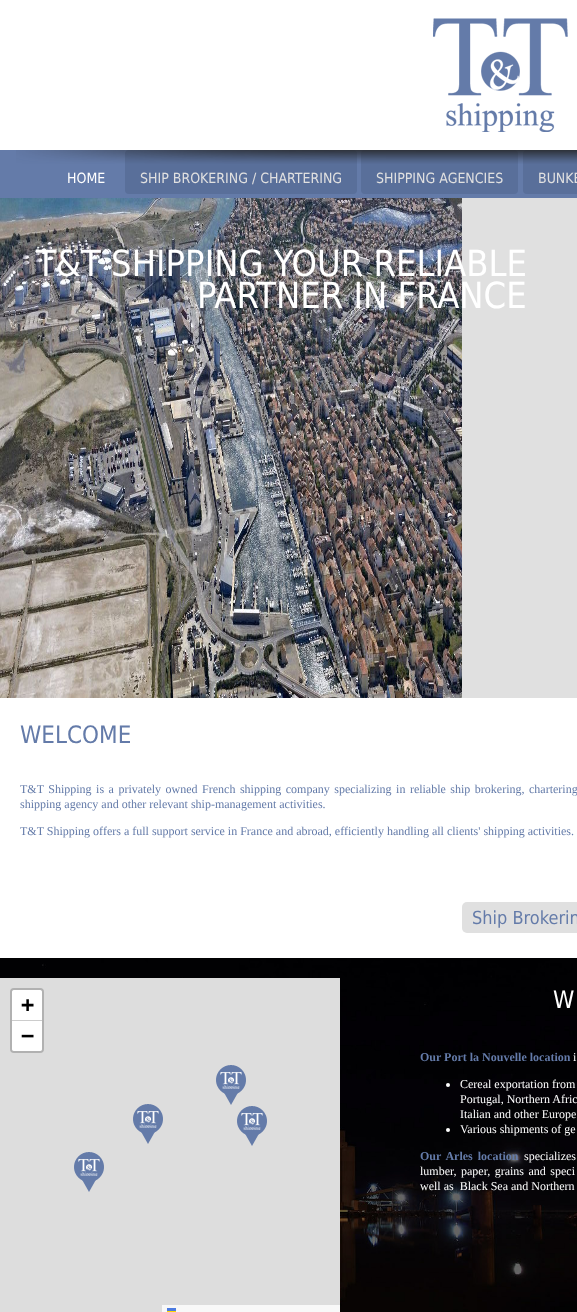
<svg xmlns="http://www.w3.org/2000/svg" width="577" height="1312">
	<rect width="100%" height="100%" fill="#FFFFFF" />
	<image x="433" y="18" width="135" height="114" href="assets/img1.png" />
	<rect x="0" y="150" width="577" height="48" fill="#647BA9" />
	<rect x="125" y="150" width="232" height="44" rx="4" fill="#596F9A" />
	<rect x="361" y="150" width="157" height="44" rx="4" fill="#596F9A" />
	<rect x="523" y="150" width="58" height="44" rx="4" fill="#596F9A" />
	<image x="16" y="150" width="561" height="14" href="assets/img2.png" />
	<text x="67" y="183" font-family="DejaVu Sans" font-size="14" fill="#FFFFFF">HOME</text>
	<g font-family="DejaVu Sans" font-size="14" fill="#E0E0E0">
		<text x="140" y="183">SHIP BROKERING / CHARTERING</text>
		<text x="376" y="183">SHIPPING AGENCIES</text>
		<text x="538" y="183">BUNKE</text>
	</g>
	<rect x="462" y="198" width="115" height="500" fill="#E0E0E0" />
	<image x="0" y="198" width="462" height="500" href="assets/img3.png" />
	<g font-family="DejaVu Sans" font-size="36" fill="#FFFFFF">
		<text x="36" y="276">T&amp;T SHIPPING YOUR RELIABLE</text>
		<text x="197" y="308">PARTNER IN FRANCE</text>
	</g>
	<text x="20" y="743" font-family="DejaVu Sans" font-size="24" fill="#647BA9">WELCOME</text>
	<g font-family="Liberation Serif" font-size="12" fill="#647BA9">
		<text x="20" y="793" word-spacing="1.5">T&amp;T Shipping is a privately owned French shipping company specializing in reliable ship brokering, chartering</text>
		<text x="20" y="808">shipping agency and other relevant ship-management activities.</text>
		<text x="20" y="835">T&amp;T Shipping offers a full support service in France and abroad, efficiently handling all clients' shipping activities.</text>
	</g>
	<rect x="462" y="902" width="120" height="31" rx="5" fill="#E0E0E0" />
	<text x="472" y="924" font-family="DejaVu Sans" font-size="18" fill="#647BA9">Ship Brokerin</text>
	<image x="0" y="958" width="577" height="354" href="assets/img4.png" />
	<rect x="0" y="978" width="340" height="334" fill="#DDDDDD" />
	<rect x="11" y="989" width="32" height="63" rx="3" fill="none" stroke="#B1B1B1" stroke-width="2" />
	<path d="M14 990H40C41 990 42 991 42 992V1021H12V992C12 991 13 990 14 990Z" fill="#FFFFFF" />
	<rect x="12" y="1020" width="30" height="1" fill="#CCCCCC" />
	<text x="21" y="1012" font-family="DejaVu Sans Mono" font-size="22" font-weight="700" fill="#000000">+</text>
	<path d="M12 1021H42V1049C42 1050 41 1051 40 1051H14C13 1051 12 1050 12 1049Z" fill="#FFFFFF" />
	<text x="21" y="1043" font-family="DejaVu Sans Mono" font-size="22" font-weight="700" fill="#000000">−</text>
	<rect x="162" y="1305" width="178" height="7" fill="#F8F8F8" />
	<rect x="167" y="1308" width="9" height="3" fill="#4C7BE1" />
	<rect x="167" y="1311" width="9" height="1" fill="#FFD500" />
	<image x="216" y="1065" width="30" height="40" href="assets/img5.png" />
	<image x="133" y="1104" width="30" height="40" href="assets/img5.png" />
	<image x="237" y="1106" width="30" height="40" href="assets/img5.png" />
	<image x="74" y="1152" width="30" height="40" href="assets/img5.png" />
	<text x="553" y="1008" font-family="DejaVu Sans" font-size="24" fill="#FFFFFF">W</text>
	<text x="420" y="1061" font-family="Liberation Serif" font-size="12" font-weight="700" fill="#647BA9">Our Port la Nouvelle location</text>
	<text x="573" y="1061" font-family="Liberation Serif" font-size="12" fill="#FFFFFF">i</text>
	<circle cx="448" cy="1085" r="2" fill="#FFFFFF" />
	<g font-family="Liberation Serif" font-size="12" fill="#FFFFFF">
		<text x="460" y="1088">Cereal exportation from</text>
		<text x="460" y="1103">Portugal, Northern Afric</text>
		<text x="460" y="1118">Italian and other Europe</text>
	</g>
	<circle cx="448" cy="1130" r="2" fill="#FFFFFF" />
	<text x="460" y="1133" font-family="Liberation Serif" font-size="12" fill="#FFFFFF">Various shipments of ge</text>
	<text x="420" y="1160" word-spacing="2" font-family="Liberation Serif" font-size="12" font-weight="700" fill="#647BA9">Our Arles location</text>
	<g font-family="Liberation Serif" font-size="12" fill="#FFFFFF">
		<text x="524" y="1160" word-spacing="2">specializes</text>
		<text x="420" y="1175" word-spacing="1.5">lumber, paper, grains and speci</text>
		<text x="420" y="1190" xml:space="preserve">well as  Black Sea and Northern</text>
	</g>
</svg>
